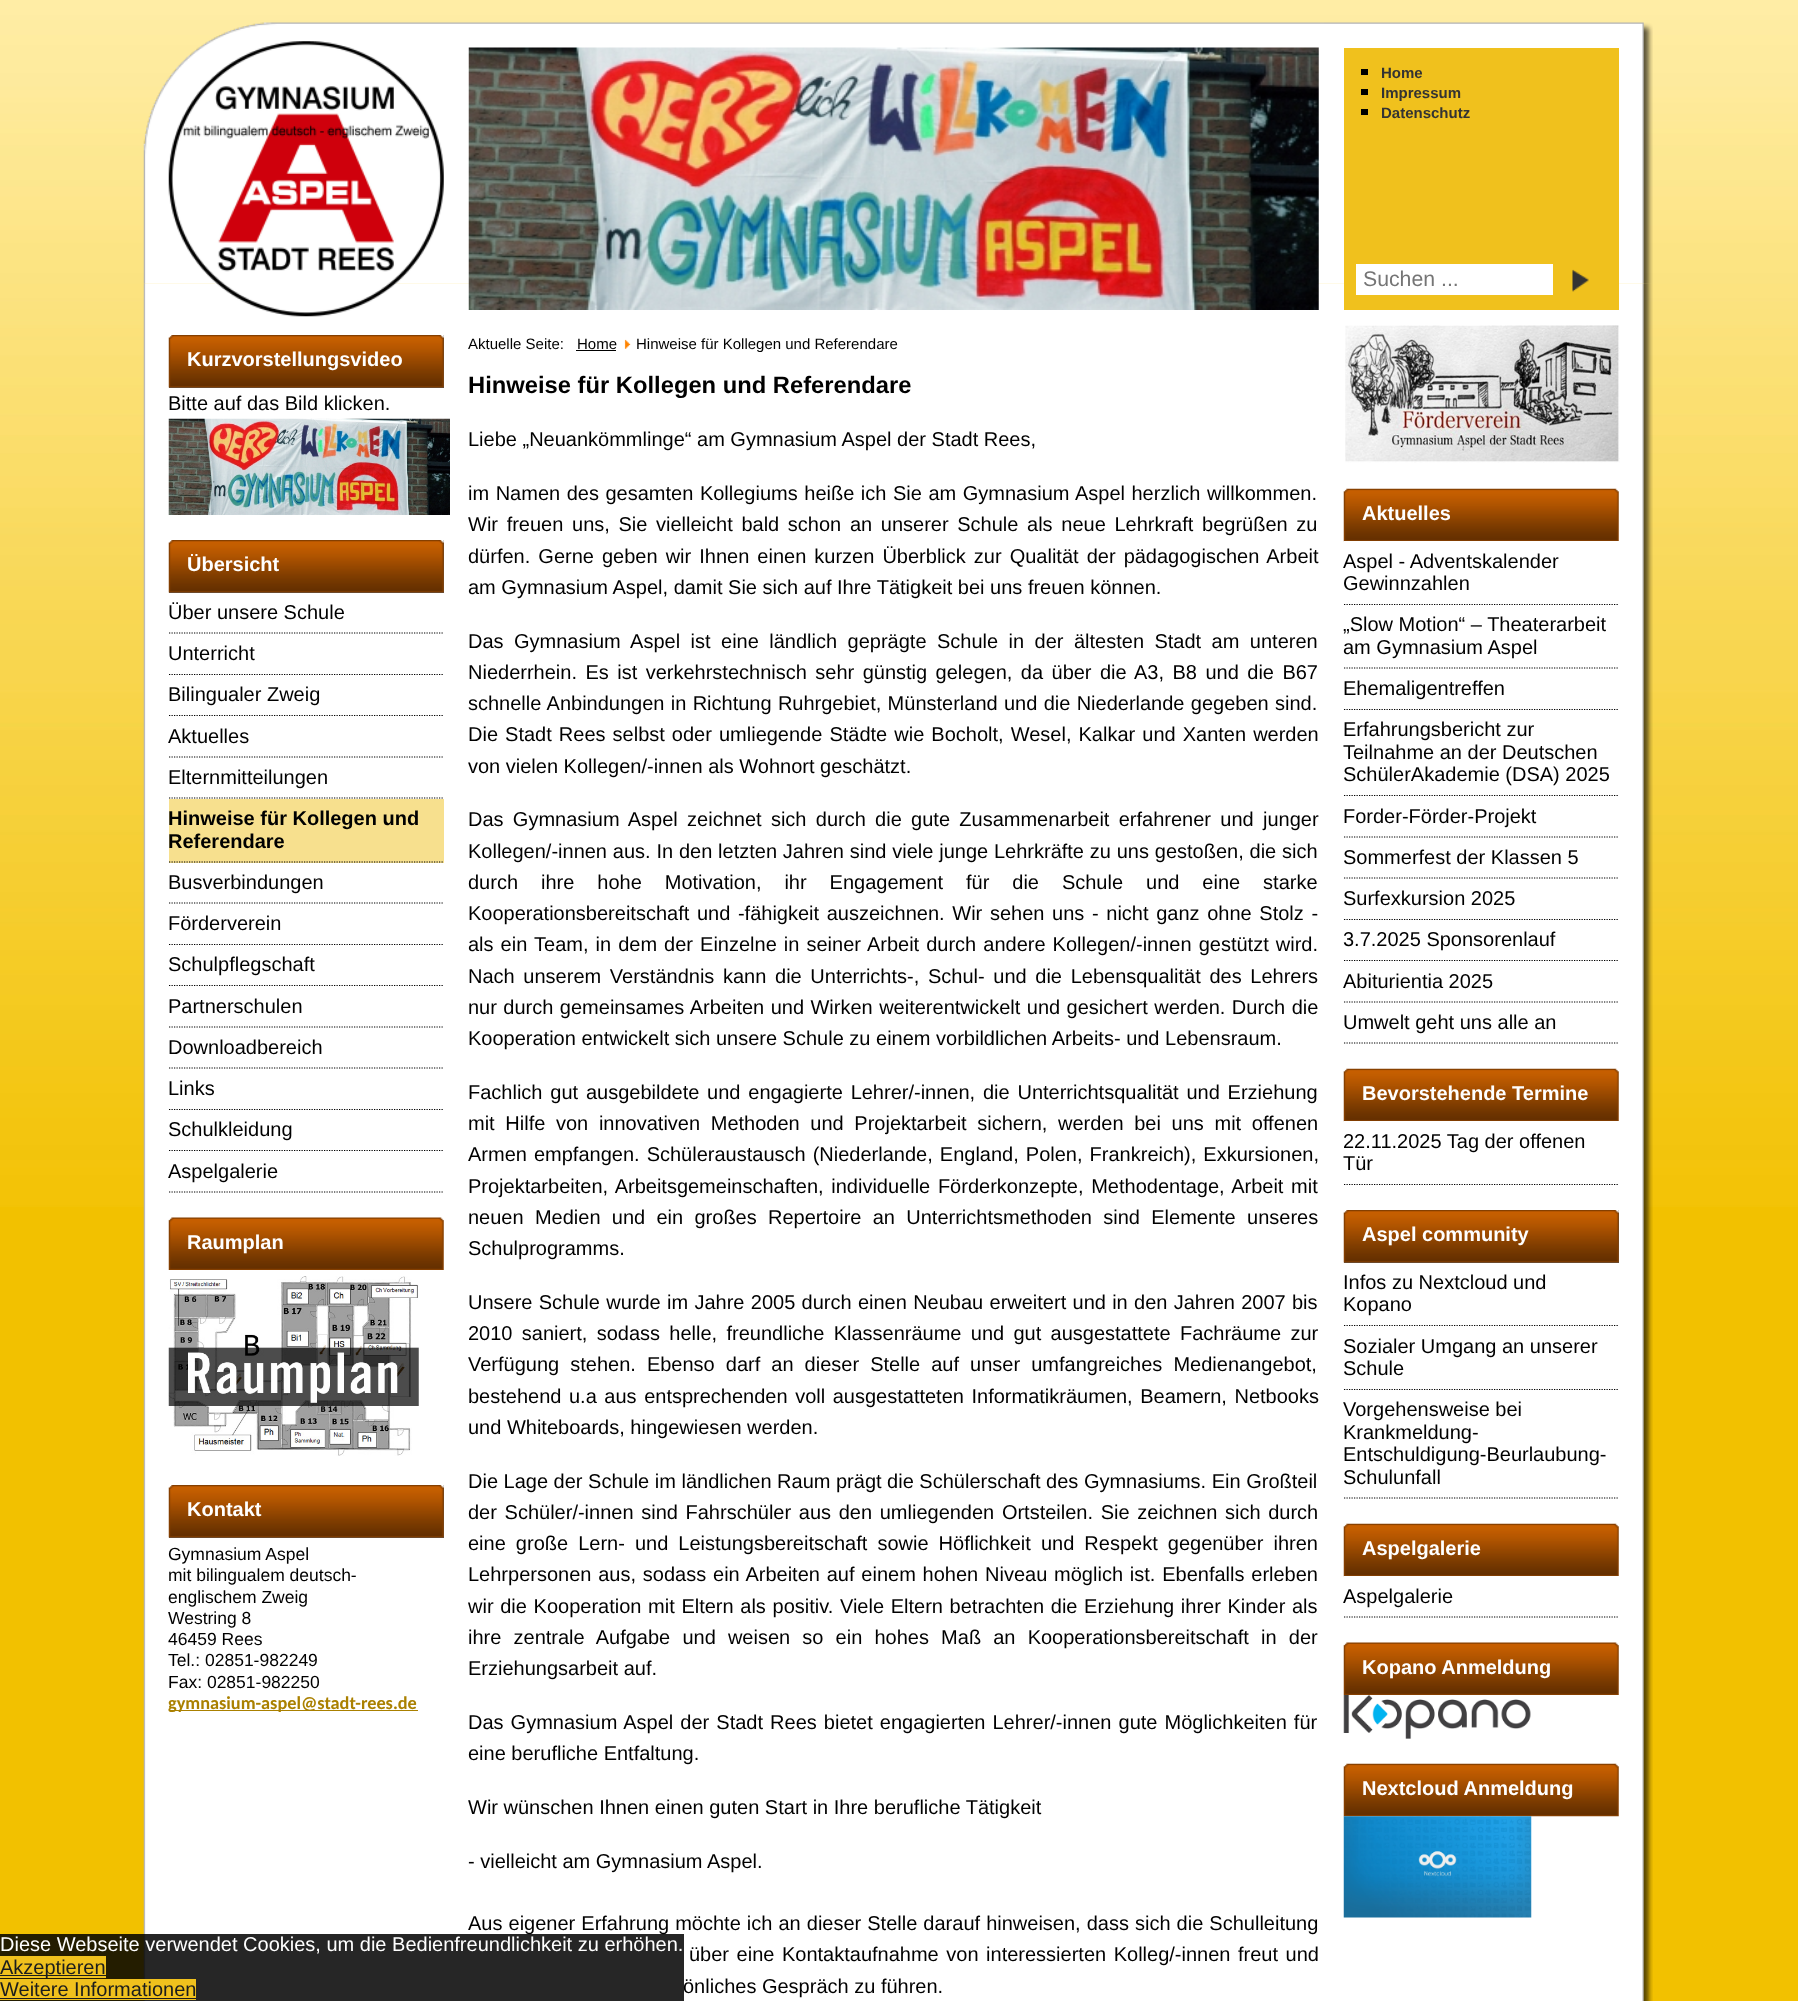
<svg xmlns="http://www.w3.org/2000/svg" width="1798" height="2001">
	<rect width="100%" height="100%" fill="#F2C100" />
	<image x="0" y="0" width="1798" height="1207" href="assets/img1.png" />
	<image x="143" y="283" width="1510" height="1718" href="assets/img6.png" />
	<image x="143" y="22" width="1510" height="262" href="assets/img2.png" />
	<image x="168" y="41" width="276" height="276" href="assets/img3.png" />
	<image x="468" y="47" width="851" height="263" href="assets/img4.png" />
	<rect x="1344" y="48" width="275" height="262" fill="#F0C11D" />
	<rect x="1361" y="69" width="7" height="6" fill="#000000" />
	<text x="1381" y="78" font-family="Liberation Sans" font-size="15" font-weight="700" fill="#333333">Home</text>
	<rect x="1361" y="89" width="7" height="6" fill="#000000" />
	<text x="1381" y="98" font-family="Liberation Sans" font-size="15" font-weight="700" fill="#333333">Impressum</text>
	<rect x="1361" y="109" width="7" height="6" fill="#000000" />
	<text x="1381" y="118" font-family="Liberation Sans" font-size="15" font-weight="700" fill="#333333">Datenschutz</text>
	<rect x="1356" y="264" width="197" height="31" fill="#FFFFFF" />
	<text x="1363" y="286" font-family="Liberation Sans" font-size="21.25" fill="#757575">Suchen ...</text>
	<image x="1572" y="269" width="17" height="23" href="assets/img5.png" />
	<rect x="169" y="335" width="275" height="53" fill="#545454" />
	<image x="168" y="335" width="276" height="53" href="assets/img7.png" />
	<text x="187" y="366" font-family="Liberation Sans" font-size="20" font-weight="700" fill="#FFFFFF">Kurzvorstellungsvideo</text>
	<text x="168" y="410" font-family="Liberation Sans" font-size="20" fill="#000000">Bitte auf das Bild klicken.</text>
	<image x="168" y="418" width="282" height="97" href="assets/img8.png" />
	<rect x="169" y="540" width="275" height="53" fill="#545454" />
	<image x="168" y="540" width="276" height="53" href="assets/img7.png" />
	<text x="187" y="571" font-family="Liberation Sans" font-size="20" font-weight="700" fill="#FFFFFF">Übersicht</text>
	<path d="M169 633H444" fill="none" stroke="#000000" stroke-width="1.2" stroke-dasharray="1.25 1.25" />
	<text x="168" y="619" font-family="Liberation Sans" font-size="20" fill="#000000">Über unsere Schule</text>
	<path d="M169 674.5H444" fill="none" stroke="#000000" stroke-width="1.2" stroke-dasharray="1.25 1.25" />
	<text x="168" y="660" font-family="Liberation Sans" font-size="20" fill="#000000">Unterricht</text>
	<rect x="169" y="675" width="274" height="1" fill="#FFFFFF" />
	<path d="M169 715.5H444" fill="none" stroke="#000000" stroke-width="1.2" stroke-dasharray="1.25 1.25" />
	<text x="168" y="701" font-family="Liberation Sans" font-size="20" fill="#000000">Bilingualer Zweig</text>
	<rect x="169" y="716" width="274" height="1" fill="#FFFFFF" />
	<path d="M169 757H444" fill="none" stroke="#000000" stroke-width="1.2" stroke-dasharray="1.25 1.25" />
	<text x="168" y="743" font-family="Liberation Sans" font-size="20" fill="#000000">Aktuelles</text>
	<path d="M169 798H444" fill="none" stroke="#000000" stroke-width="1.2" stroke-dasharray="1.25 1.25" />
	<text x="168" y="784" font-family="Liberation Sans" font-size="20" fill="#000000">Elternmitteilungen</text>
	<rect x="169" y="799" width="275" height="64" fill="#F7E08E" />
	<path d="M169 862H444" fill="none" stroke="#000000" stroke-width="1.2" stroke-dasharray="1.25 1.25" />
	<g font-family="Liberation Sans" font-size="20" font-weight="700" fill="#000000">
		<text x="168" y="825">Hinweise für Kollegen und</text>
		<text x="168" y="848">Referendare</text>
	</g>
	<path d="M169 903H444" fill="none" stroke="#000000" stroke-width="1.2" stroke-dasharray="1.25 1.25" />
	<text x="168" y="889" font-family="Liberation Sans" font-size="20" fill="#000000">Busverbindungen</text>
	<path d="M169 944.5H444" fill="none" stroke="#000000" stroke-width="1.2" stroke-dasharray="1.25 1.25" />
	<text x="168" y="930" font-family="Liberation Sans" font-size="20" fill="#000000">Förderverein</text>
	<rect x="169" y="945" width="274" height="1" fill="#FFFFFF" />
	<path d="M169 985.5H444" fill="none" stroke="#000000" stroke-width="1.2" stroke-dasharray="1.25 1.25" />
	<text x="168" y="971" font-family="Liberation Sans" font-size="20" fill="#000000">Schulpflegschaft</text>
	<rect x="169" y="986" width="274" height="1" fill="#FFFFFF" />
	<path d="M169 1027H444" fill="none" stroke="#000000" stroke-width="1.2" stroke-dasharray="1.25 1.25" />
	<text x="168" y="1013" font-family="Liberation Sans" font-size="20" fill="#000000">Partnerschulen</text>
	<path d="M169 1068H444" fill="none" stroke="#000000" stroke-width="1.2" stroke-dasharray="1.25 1.25" />
	<text x="168" y="1054" font-family="Liberation Sans" font-size="20" fill="#000000">Downloadbereich</text>
	<path d="M169 1109.5H444" fill="none" stroke="#000000" stroke-width="1.2" stroke-dasharray="1.25 1.25" />
	<text x="168" y="1095" font-family="Liberation Sans" font-size="20" fill="#000000">Links</text>
	<rect x="169" y="1110" width="274" height="1" fill="#FFFFFF" />
	<path d="M169 1150.5H444" fill="none" stroke="#000000" stroke-width="1.2" stroke-dasharray="1.25 1.25" />
	<text x="168" y="1136" font-family="Liberation Sans" font-size="20" fill="#000000">Schulkleidung</text>
	<rect x="169" y="1151" width="274" height="1" fill="#FFFFFF" />
	<path d="M169 1192H444" fill="none" stroke="#000000" stroke-width="1.2" stroke-dasharray="1.25 1.25" />
	<text x="168" y="1178" font-family="Liberation Sans" font-size="20" fill="#000000">Aspelgalerie</text>
	<image x="168" y="1217" width="276" height="53" href="assets/img9.png" />
	<text x="187" y="1249" font-family="Liberation Sans" font-size="20" font-weight="700" fill="#FFFFFF">Raumplan</text>
	<image x="168" y="1276" width="251" height="180" href="assets/img10.png" />
	<rect x="169" y="1485" width="275" height="53" fill="#545454" />
	<image x="168" y="1485" width="276" height="53" href="assets/img7.png" />
	<text x="187" y="1516" font-family="Liberation Sans" font-size="20" font-weight="700" fill="#FFFFFF">Kontakt</text>
	<g font-family="Liberation Sans" font-size="17.5" fill="#000000">
		<text x="168" y="1560">Gymnasium Aspel</text>
		<text x="168" y="1581">mit bilingualem deutsch-</text>
		<text x="168" y="1603">englischem Zweig</text>
		<text x="168" y="1624">Westring 8</text>
		<text x="168" y="1645">46459 Rees</text>
		<text x="168" y="1666">Tel.: 02851-982249</text>
		<text x="168" y="1688">Fax: 02851-982250</text>
	</g>
	<rect x="169" y="1710" width="249" height="1" fill="#AA8000" />
	<text x="168" y="1709" font-family="Carlito" font-size="18.3" font-weight="700" fill="#AA8000">gymnasium-aspel@stadt-rees.de</text>
	<g font-family="Liberation Sans" font-size="15" fill="#000000">
		<text x="468" y="349">Aktuelle Seite:</text>
		<text x="577" y="349">Home</text>
	</g>
	<rect x="576" y="350" width="40" height="1" fill="#000000" />
	<image x="624" y="339" width="7" height="10" href="assets/img11.png" />
	<text x="636" y="349" font-family="Liberation Sans" font-size="15" fill="#000000">Hinweise für Kollegen und Referendare</text>
	<text x="468" y="393" font-family="Liberation Sans" font-size="23.75" font-weight="700" fill="#000000">Hinweise für Kollegen und Referendare</text>
	<g font-family="Liberation Sans" font-size="20" fill="#000000">
		<text x="468" y="446">Liebe „Neuankömmlinge“ am Gymnasium Aspel der Stadt Rees,</text>
		<text x="468" y="500" word-spacing="1">im Namen des gesamten Kollegiums heiße ich Sie am Gymnasium Aspel herzlich willkommen.</text>
		<text x="468" y="531" word-spacing="3.1">Wir freuen uns, Sie vielleicht bald schon an unserer Schule als neue Lehrkraft begrüßen zu</text>
		<text x="468" y="563" word-spacing="2.5">dürfen. Gerne geben wir Ihnen einen kurzen Überblick zur Qualität der pädagogischen Arbeit</text>
		<text x="468" y="594">am Gymnasium Aspel, damit Sie sich auf Ihre Tätigkeit bei uns freuen können.</text>
		<text x="468" y="648" word-spacing="4.9">Das Gymnasium Aspel ist eine ländlich geprägte Schule in der ältesten Stadt am unteren</text>
		<text x="468" y="679" word-spacing="2.9">Niederrhein. Es ist verkehrstechnisch sehr günstig gelegen, da über die A3, B8 und die B67</text>
		<text x="468" y="710" word-spacing="0.75">schnelle Anbindungen in Richtung Ruhrgebiet, Münsterland und die Niederlande gegeben sind.</text>
		<text x="468" y="741" word-spacing="1.5">Die Stadt Rees selbst oder umliegende Städte wie Bocholt, Wesel, Kalkar und Xanten werden</text>
		<text x="468" y="773">von vielen Kollegen/-innen als Wohnort geschätzt.</text>
		<text x="468" y="826" word-spacing="3.75">Das Gymnasium Aspel zeichnet sich durch die gute Zusammenarbeit erfahrener und junger</text>
		<text x="468" y="858" word-spacing="0.25">Kollegen/-innen aus. In den letzten Jahren sind viele junge Lehrkräfte zu uns gestoßen, die sich</text>
		<text x="468" y="889" word-spacing="17.4">durch ihre hohe Motivation, ihr Engagement für die Schule und eine starke</text>
		<text x="468" y="920" word-spacing="2.1">Kooperationsbereitschaft und -fähigkeit auszeichnen. Wir sehen uns - nicht ganz ohne Stolz -</text>
		<text x="468" y="951" word-spacing="1.5">als ein Team, in dem der Einzelne in seiner Arbeit durch andere Kollegen/-innen gestützt wird.</text>
		<text x="468" y="983" word-spacing="3.1">Nach unserem Verständnis kann die Unterrichts-, Schul- und die Lebensqualität des Lehrers</text>
		<text x="468" y="1014" word-spacing="0.9">nur durch gemeinsames Arbeiten und Wirken weiterentwickelt und gesichert werden. Durch die</text>
		<text x="468" y="1045">Kooperation entwickelt sich unsere Schule zu einem vorbildlichen Arbeits- und Lebensraum.</text>
		<text x="468" y="1099" word-spacing="2.25">Fachlich gut ausgebildete und engagierte Lehrer/-innen, die Unterrichtsqualität und Erziehung</text>
		<text x="468" y="1130" word-spacing="5.1">mit Hilfe von innovativen Methoden und Projektarbeit sichern, werden bei uns mit offenen</text>
		<text x="468" y="1161" word-spacing="1.5">Armen empfangen. Schüleraustausch (Niederlande, England, Polen, Frankreich), Exkursionen,</text>
		<text x="468" y="1193" word-spacing="2.1">Projektarbeiten, Arbeitsgemeinschaften, individuelle Förderkonzepte, Methodentage, Arbeit mit</text>
		<text x="468" y="1224" word-spacing="5.75">neuen Medien und ein großes Repertoire an Unterrichtsmethoden sind Elemente unseres</text>
		<text x="468" y="1255">Schulprogramms.</text>
		<text x="468" y="1309" word-spacing="0.75">Unsere Schule wurde im Jahre 2005 durch einen Neubau erweitert und in den Jahren 2007 bis</text>
		<text x="468" y="1340" word-spacing="3.75">2010 saniert, sodass helle, freundliche Klassenräume und gut ausgestattete Fachräume zur</text>
		<text x="468" y="1371" word-spacing="5.5">Verfügung stehen. Ebenso darf an dieser Stelle auf unser umfangreiches Medienangebot,</text>
		<text x="468" y="1403" word-spacing="2">bestehend u.a aus entsprechenden voll ausgestatteten Informatikräumen, Beamern, Netbooks</text>
		<text x="468" y="1434">und Whiteboards, hingewiesen werden.</text>
		<text x="468" y="1488">Die Lage der Schule im ländlichen Raum prägt die Schülerschaft des Gymnasiums. Ein Großteil</text>
		<text x="468" y="1519" word-spacing="2.1">der Schüler/-innen sind Fahrschüler aus den umliegenden Ortsteilen. Sie zeichnen sich durch</text>
		<text x="468" y="1550" word-spacing="4.5">eine große Lern- und Leistungsbereitschaft sowie Höflichkeit und Respekt gegenüber ihren</text>
		<text x="468" y="1581" word-spacing="1.25">Lehrpersonen aus, sodass ein Arbeiten auf einem hohen Niveau möglich ist. Ebenfalls erleben</text>
		<text x="468" y="1613" word-spacing="1.1">wir die Kooperation mit Eltern als positiv. Viele Eltern betrachten die Erziehung ihrer Kinder als</text>
		<text x="468" y="1644" word-spacing="6.6">ihre zentrale Aufgabe und weisen so ein hohes Maß an Kooperationsbereitschaft in der</text>
		<text x="468" y="1675">Erziehungsarbeit auf.</text>
		<text x="468" y="1729" word-spacing="1.5">Das Gymnasium Aspel der Stadt Rees bietet engagierten Lehrer/-innen gute Möglichkeiten für</text>
		<text x="468" y="1760">eine berufliche Entfaltung.</text>
		<text x="468" y="1814">Wir wünschen Ihnen einen guten Start in Ihre berufliche Tätigkeit</text>
		<text x="468" y="1868">- vielleicht am Gymnasium Aspel.</text>
		<text x="468" y="1930" word-spacing="0.5">Aus eigener Erfahrung möchte ich an dieser Stelle darauf hinweisen, dass sich die Schulleitung</text>
		<text x="689" y="1961" word-spacing="2">über eine Kontaktaufnahme von interessierten Kolleg/-innen freut und</text>
		<text x="683" y="1993">önliches Gespräch zu führen.</text>
	</g>
	<image x="1345" y="325" width="275" height="138" href="assets/img12.png" />
	<image x="1343" y="488" width="276" height="54" href="assets/img13.png" />
	<text x="1362" y="520" font-family="Liberation Sans" font-size="20" font-weight="700" fill="#FFFFFF">Aktuelles</text>
	<rect x="1344" y="541" width="275" height="1" fill="#FFFFFF" />
	<path d="M1344 604.5H1619" fill="none" stroke="#000000" stroke-width="1.2" stroke-dasharray="1.25 1.25" />
	<g font-family="Liberation Sans" font-size="20" fill="#000000">
		<text x="1343" y="568">Aspel - Adventskalender</text>
		<text x="1343" y="590">Gewinnzahlen</text>
	</g>
	<rect x="1344" y="605" width="274" height="1" fill="#FFFFFF" />
	<path d="M1344 668H1619" fill="none" stroke="#000000" stroke-width="1.2" stroke-dasharray="1.25 1.25" />
	<g font-family="Liberation Sans" font-size="20" fill="#000000">
		<text x="1343" y="631">„Slow Motion“ – Theaterarbeit</text>
		<text x="1343" y="654">am Gymnasium Aspel</text>
	</g>
	<path d="M1344 709.5H1619" fill="none" stroke="#000000" stroke-width="1.2" stroke-dasharray="1.25 1.25" />
	<text x="1343" y="695" font-family="Liberation Sans" font-size="20" fill="#000000">Ehemaligentreffen</text>
	<rect x="1344" y="710" width="274" height="1" fill="#FFFFFF" />
	<path d="M1344 795.5H1619" fill="none" stroke="#000000" stroke-width="1.2" stroke-dasharray="1.25 1.25" />
	<g font-family="Liberation Sans" font-size="20" fill="#000000">
		<text x="1343" y="736">Erfahrungsbericht zur</text>
		<text x="1343" y="759">Teilnahme an der Deutschen</text>
		<text x="1343" y="781">SchülerAkademie (DSA) 2025</text>
	</g>
	<rect x="1344" y="796" width="274" height="1" fill="#FFFFFF" />
	<path d="M1344 837H1619" fill="none" stroke="#000000" stroke-width="1.2" stroke-dasharray="1.25 1.25" />
	<text x="1343" y="823" font-family="Liberation Sans" font-size="20" fill="#000000">Forder-Förder-Projekt</text>
	<path d="M1344 878H1619" fill="none" stroke="#000000" stroke-width="1.2" stroke-dasharray="1.25 1.25" />
	<text x="1343" y="864" font-family="Liberation Sans" font-size="20" fill="#000000">Sommerfest der Klassen 5</text>
	<path d="M1344 919.5H1619" fill="none" stroke="#000000" stroke-width="1.2" stroke-dasharray="1.25 1.25" />
	<text x="1343" y="905" font-family="Liberation Sans" font-size="20" fill="#000000">Surfexkursion 2025</text>
	<rect x="1344" y="920" width="274" height="1" fill="#FFFFFF" />
	<path d="M1344 960.5H1619" fill="none" stroke="#000000" stroke-width="1.2" stroke-dasharray="1.25 1.25" />
	<text x="1343" y="946" font-family="Liberation Sans" font-size="20" fill="#000000">3.7.2025 Sponsorenlauf</text>
	<rect x="1344" y="961" width="274" height="1" fill="#FFFFFF" />
	<path d="M1344 1002H1619" fill="none" stroke="#000000" stroke-width="1.2" stroke-dasharray="1.25 1.25" />
	<text x="1343" y="988" font-family="Liberation Sans" font-size="20" fill="#000000">Abiturientia 2025</text>
	<path d="M1344 1043H1619" fill="none" stroke="#000000" stroke-width="1.2" stroke-dasharray="1.25 1.25" />
	<text x="1343" y="1029" font-family="Liberation Sans" font-size="20" fill="#000000">Umwelt geht uns alle an</text>
	<image x="1343" y="1068" width="276" height="54" href="assets/img13.png" />
	<text x="1362" y="1100" font-family="Liberation Sans" font-size="20" font-weight="700" fill="#FFFFFF">Bevorstehende Termine</text>
	<rect x="1344" y="1121" width="275" height="1" fill="#FFFFFF" />
	<path d="M1344 1184.5H1619" fill="none" stroke="#000000" stroke-width="1.2" stroke-dasharray="1.25 1.25" />
	<g font-family="Liberation Sans" font-size="20" fill="#000000">
		<text x="1343" y="1148">22.11.2025 Tag der offenen</text>
		<text x="1343" y="1170">Tür</text>
	</g>
	<rect x="1344" y="1210" width="275" height="53" fill="#545454" />
	<image x="1343" y="1210" width="276" height="53" href="assets/img14.png" />
	<text x="1362" y="1241" font-family="Liberation Sans" font-size="20" font-weight="700" fill="#FFFFFF">Aspel community</text>
	<path d="M1344 1325.5H1619" fill="none" stroke="#000000" stroke-width="1.2" stroke-dasharray="1.25 1.25" />
	<g font-family="Liberation Sans" font-size="20" fill="#000000">
		<text x="1343" y="1289">Infos zu Nextcloud und</text>
		<text x="1343" y="1311">Kopano</text>
	</g>
	<rect x="1344" y="1326" width="274" height="1" fill="#FFFFFF" />
	<path d="M1344 1389.5H1619" fill="none" stroke="#000000" stroke-width="1.2" stroke-dasharray="1.25 1.25" />
	<g font-family="Liberation Sans" font-size="20" fill="#000000">
		<text x="1343" y="1353">Sozialer Umgang an unserer</text>
		<text x="1343" y="1375">Schule</text>
	</g>
	<rect x="1344" y="1390" width="274" height="1" fill="#FFFFFF" />
	<path d="M1344 1498H1619" fill="none" stroke="#000000" stroke-width="1.2" stroke-dasharray="1.25 1.25" />
	<g font-family="Liberation Sans" font-size="20" fill="#000000">
		<text x="1343" y="1416">Vorgehensweise bei</text>
		<text x="1343" y="1439">Krankmeldung-</text>
		<text x="1343" y="1461">Entschuldigung-Beurlaubung-</text>
		<text x="1343" y="1484">Schulunfall</text>
	</g>
	<image x="1343" y="1523" width="276" height="54" href="assets/img13.png" />
	<text x="1362" y="1555" font-family="Liberation Sans" font-size="20" font-weight="700" fill="#FFFFFF">Aspelgalerie</text>
	<rect x="1344" y="1576" width="275" height="1" fill="#FFFFFF" />
	<path d="M1344 1617H1619" fill="none" stroke="#000000" stroke-width="1.2" stroke-dasharray="1.25 1.25" />
	<text x="1343" y="1603" font-family="Liberation Sans" font-size="20" fill="#000000">Aspelgalerie</text>
	<image x="1343" y="1642" width="276" height="53" href="assets/img15.png" />
	<text x="1362" y="1674" font-family="Liberation Sans" font-size="20" font-weight="700" fill="#FFFFFF">Kopano Anmeldung</text>
	<image x="1343" y="1695" width="188" height="44" href="assets/img16.png" />
	<image x="1343" y="1763" width="276" height="54" href="assets/img13.png" />
	<text x="1362" y="1795" font-family="Liberation Sans" font-size="20" font-weight="700" fill="#FFFFFF">Nextcloud Anmeldung</text>
	<image x="1343" y="1816" width="189" height="102" href="assets/img17.png" />
	<rect x="0" y="1934" width="684" height="67" fill="#000000" fill-opacity="0.85" />
	<text x="0" y="1951" font-family="Liberation Sans" font-size="20" fill="#FFFFFF">Diese Webseite verwendet Cookies, um die Bedienfreundlichkeit zu erhöhen.</text>
	<rect x="0" y="1956" width="106" height="22" fill="#F0C11D" />
	<rect x="0" y="1975" width="106" height="1" fill="#1B1D1D" />
	<text x="0" y="1974" font-family="Liberation Sans" font-size="20" fill="#1B1D1D">Akzeptieren</text>
	<rect x="0" y="1979" width="196" height="21" fill="#F0C11D" />
	<text x="0" y="1996" font-family="Liberation Sans" font-size="20" fill="#1B1D1D">Weitere Informationen</text>
	<rect x="0" y="1998" width="196" height="1" fill="#1B1D1D" />
</svg>
